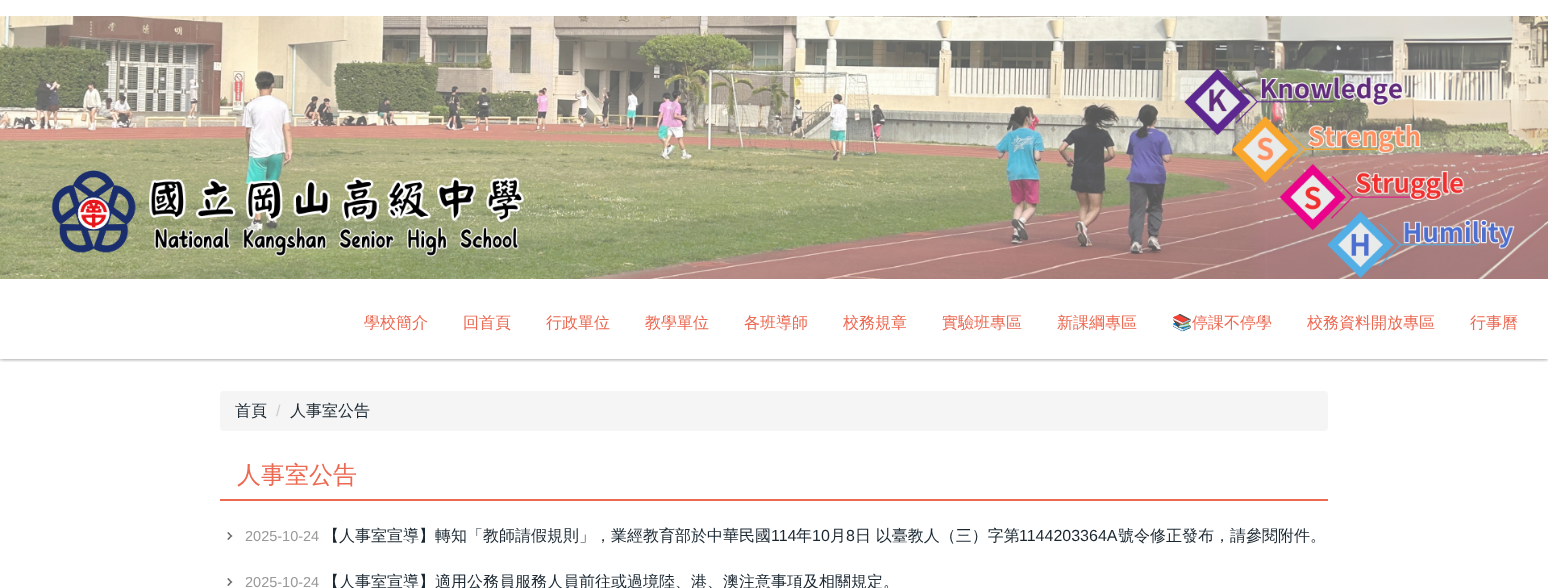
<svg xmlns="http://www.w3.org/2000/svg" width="1548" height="588">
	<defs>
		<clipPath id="clip1"><rect x="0" y="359" width="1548" height="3" /></clipPath>
	</defs>
	<rect width="100%" height="100%" fill="#FFFFFF" />
	<g clip-path="url(#clip1)">
		<rect x="0" y="0" width="1548" height="359" fill="#000000" fill-opacity="0.5" filter="blur(2px)" />
	</g>
	<image x="0" y="16" width="1548" height="263" href="assets/img1.png" />
	<g font-family="WenQuanYi Zen Hei" font-size="16" font-weight="500" fill="#EC6952">
		<text x="364" y="328">學校簡介</text>
		<text x="463" y="328">回首頁</text>
		<text x="546" y="328">行政單位</text>
		<text x="645" y="328">教學單位</text>
		<text x="744" y="328">各班導師</text>
		<text x="843" y="328">校務規章</text>
		<text x="942" y="328">實驗班專區</text>
		<text x="1057" y="328">新課綱專區</text>
	</g>
	<text x="1172" y="328" font-family="Noto Color Emoji" font-size="16" fill="#EC6952">📚</text>
	<g font-family="WenQuanYi Zen Hei" font-size="16" font-weight="500" fill="#EC6952">
		<text x="1192" y="328">停課不停學</text>
		<text x="1307" y="328">校務資料開放專區</text>
		<text x="1470" y="328">行事曆</text>
	</g>
	<rect x="220" y="391" width="1108" height="40" rx="4" fill="#F5F5F5" />
	<text x="235" y="416" font-family="WenQuanYi Zen Hei" font-size="16" font-weight="500" fill="#1A2731">首頁</text>
	<text x="276" y="416" font-family="Liberation Sans" font-size="16" fill="#CCCCCC">/</text>
	<text x="290" y="416" font-family="WenQuanYi Zen Hei" font-size="16" font-weight="500" fill="#1A2731">人事室公告</text>
	<rect x="220" y="499" width="1108" height="2" fill="#EC6952" />
	<text x="237" y="483" font-family="WenQuanYi Zen Hei" font-size="24" font-weight="500" fill="#EC6952">人事室公告</text>
	<image x="227" y="532" width="6" height="8" href="assets/img2.png" />
	<text x="245" y="541" font-family="Liberation Sans" font-size="14.5" fill="#999999">2025-10-24</text>
	<text x="323" y="541" font-family="WenQuanYi Zen Hei" font-size="16" font-weight="500" fill="#1A2731">【人事室宣導】轉知「教師請假規則」，業經教育部於中華民國</text>
	<text x="771" y="541" font-family="Liberation Sans" font-size="16" fill="#1A2731">114</text>
	<text x="796" y="541" font-family="WenQuanYi Zen Hei" font-size="16" font-weight="500" fill="#1A2731">年</text>
	<text x="812" y="541" font-family="Liberation Sans" font-size="16" fill="#1A2731">10</text>
	<text x="830" y="541" font-family="WenQuanYi Zen Hei" font-size="16" font-weight="500" fill="#1A2731">月</text>
	<text x="846" y="541" font-family="Liberation Sans" font-size="16" fill="#1A2731">8</text>
	<text x="855" y="541" font-family="WenQuanYi Zen Hei" font-size="16" font-weight="500" fill="#1A2731">日 以臺教人（三）字第</text>
	<text x="1019" y="541" font-family="Liberation Sans" font-size="16" fill="#1A2731">1144203364A</text>
	<text x="1118" y="541" font-family="WenQuanYi Zen Hei" font-size="16" font-weight="500" fill="#1A2731">號令修正發布，請參閱附件。</text>
	<image x="227" y="578" width="6" height="8" href="assets/img2.png" />
	<text x="245" y="587" font-family="Liberation Sans" font-size="14.5" fill="#999999">2025-10-24</text>
	<text x="323" y="587" font-family="WenQuanYi Zen Hei" font-size="16" font-weight="500" fill="#1A2731">【人事室宣導】適用公務員服務人員前往或過境陸、港、澳注意事項及相關規定。</text>
</svg>
